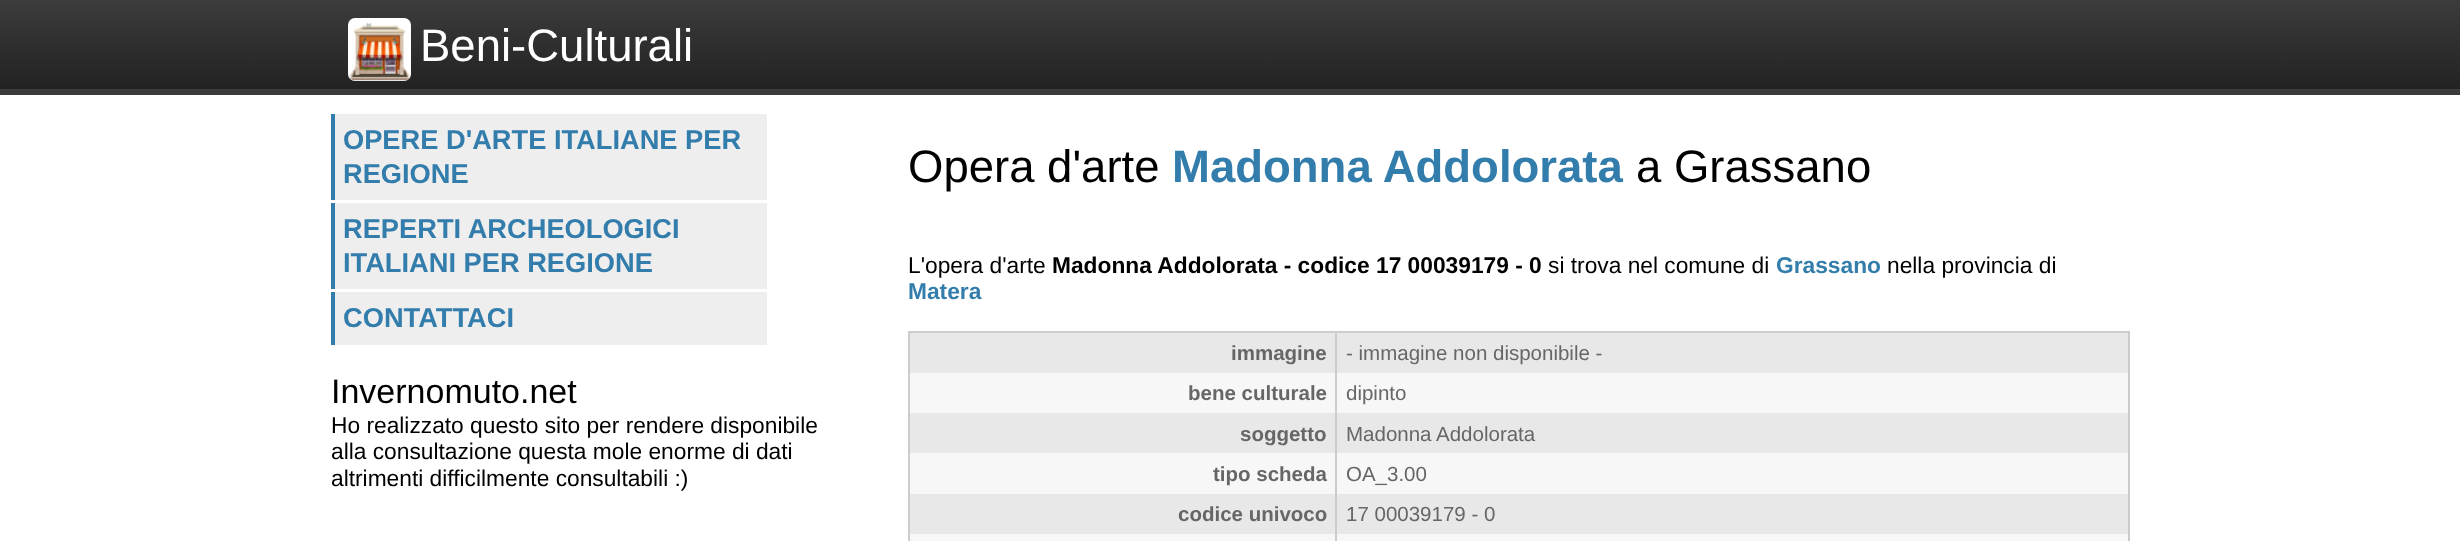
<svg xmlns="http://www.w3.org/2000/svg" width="2460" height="541">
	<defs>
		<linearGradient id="g1" gradientUnits="userSpaceOnUse" x1="0" y1="0" x2="0" y2="89"><stop offset="0" stop-color="#3C3C3C" /><stop offset="1" stop-color="#222222" /></linearGradient>
		<linearGradient id="g2" gradientUnits="userSpaceOnUse" x1="0" y1="89" x2="0" y2="179"><stop offset="0" stop-color="#3C3C3C" /><stop offset="1" stop-color="#222222" /></linearGradient>
	</defs>
	<rect width="100%" height="100%" fill="#FFFFFF" />
	<rect x="0" y="0" width="2460" height="89" fill="url(#g1)" />
	<rect x="0" y="89" width="2460" height="6" fill="url(#g2)" />
	<rect x="348" y="18" width="63" height="63" rx="7" fill="#FFFFFF" />
	<image x="349" y="22" width="61" height="59" href="assets/img1.png" />
	<text x="420" y="61" font-family="Liberation Sans" font-size="45.5" fill="#FFFFFF">Beni-Culturali</text>
	<rect x="335" y="114" width="432" height="86" fill="#EEEEEE" />
	<rect x="331" y="114" width="4" height="86" fill="#337DAC" />
	<g font-family="Liberation Sans" font-size="27.25" font-weight="700" fill="#337DAC">
		<text x="343" y="149">OPERE D'ARTE ITALIANE PER</text>
		<text x="343" y="183">REGIONE</text>
	</g>
	<rect x="335" y="203" width="432" height="86" fill="#EEEEEE" />
	<rect x="331" y="203" width="4" height="86" fill="#337DAC" />
	<g font-family="Liberation Sans" font-size="27.25" font-weight="700" fill="#337DAC">
		<text x="343" y="238">REPERTI ARCHEOLOGICI</text>
		<text x="343" y="272">ITALIANI PER REGIONE</text>
	</g>
	<rect x="335" y="292" width="432" height="53" fill="#EEEEEE" />
	<rect x="331" y="292" width="4" height="53" fill="#337DAC" />
	<text x="343" y="327" font-family="Liberation Sans" font-size="27.25" font-weight="700" fill="#337DAC">CONTATTACI</text>
	<text x="331" y="403" font-family="Liberation Sans" font-size="34" fill="#000000">Invernomuto.net</text>
	<g font-family="Liberation Sans" font-size="22.75" fill="#000000">
		<text x="331" y="433">Ho realizzato questo sito per rendere disponibile</text>
		<text x="331" y="459">alla consultazione questa mole enorme di dati</text>
		<text x="331" y="486">altrimenti difficilmente consultabili :)</text>
	</g>
	<text x="908" y="182" font-family="Liberation Sans" font-size="45.5" fill="#000000">Opera d'arte</text>
	<text x="1172" y="182" font-family="Liberation Sans" font-size="45.5" font-weight="700" fill="#337DAC">Madonna Addolorata</text>
	<text x="1636" y="182" font-family="Liberation Sans" font-size="45.5" fill="#000000">a Grassano</text>
	<text x="908" y="273" font-family="Liberation Sans" font-size="22.75" fill="#000000">L'opera d'arte</text>
	<text x="1052" y="273" font-family="Liberation Sans" font-size="22.75" font-weight="700" fill="#000000">Madonna Addolorata - codice 17 00039179 - 0</text>
	<text x="1548" y="273" font-family="Liberation Sans" font-size="22.75" fill="#000000">si trova nel comune di</text>
	<text x="1776" y="273" font-family="Liberation Sans" font-size="22.75" font-weight="700" fill="#337DAC">Grassano</text>
	<text x="1887" y="273" font-family="Liberation Sans" font-size="22.75" fill="#000000">nella provincia di</text>
	<text x="908" y="299" font-family="Liberation Sans" font-size="22.75" font-weight="700" fill="#337DAC">Matera</text>
	<rect x="908" y="331" width="1222" height="2" fill="#CCCCCC" />
	<rect x="910" y="534" width="1220" height="7" fill="#F7F7F7" />
	<rect x="2128" y="331" width="2" height="210" fill="#CCCCCC" />
	<rect x="908" y="331" width="2" height="210" fill="#CCCCCC" />
	<rect x="910" y="333" width="1218" height="40" fill="#E8E8E8" />
	<rect x="910" y="373" width="1218" height="40" fill="#F7F7F7" />
	<rect x="910" y="413" width="1218" height="40" fill="#E8E8E8" />
	<rect x="910" y="453" width="1218" height="41" fill="#F7F7F7" />
	<rect x="910" y="494" width="1218" height="40" fill="#E8E8E8" />
	<rect x="1335" y="331" width="2" height="210" fill="#CCCCCC" />
	<text x="1231" y="360" font-family="Liberation Sans" font-size="20.5" font-weight="700" fill="#666666">immagine</text>
	<text x="1346" y="360" font-family="Liberation Sans" font-size="20.5" fill="#666666">- immagine non disponibile -</text>
	<text x="1188" y="400" font-family="Liberation Sans" font-size="20.5" font-weight="700" fill="#666666">bene culturale</text>
	<text x="1346" y="400" font-family="Liberation Sans" font-size="20.5" fill="#666666">dipinto</text>
	<text x="1240" y="441" font-family="Liberation Sans" font-size="20.5" font-weight="700" fill="#666666">soggetto</text>
	<text x="1346" y="441" font-family="Liberation Sans" font-size="20.5" fill="#666666">Madonna Addolorata</text>
	<text x="1213" y="481" font-family="Liberation Sans" font-size="20.5" font-weight="700" fill="#666666">tipo scheda</text>
	<text x="1346" y="481" font-family="Liberation Sans" font-size="20.5" fill="#666666">OA_3.00</text>
	<text x="1178" y="521" font-family="Liberation Sans" font-size="20.5" font-weight="700" fill="#666666">codice univoco</text>
	<text x="1346" y="521" font-family="Liberation Sans" font-size="20.5" fill="#666666">17 00039179 - 0</text>
</svg>
